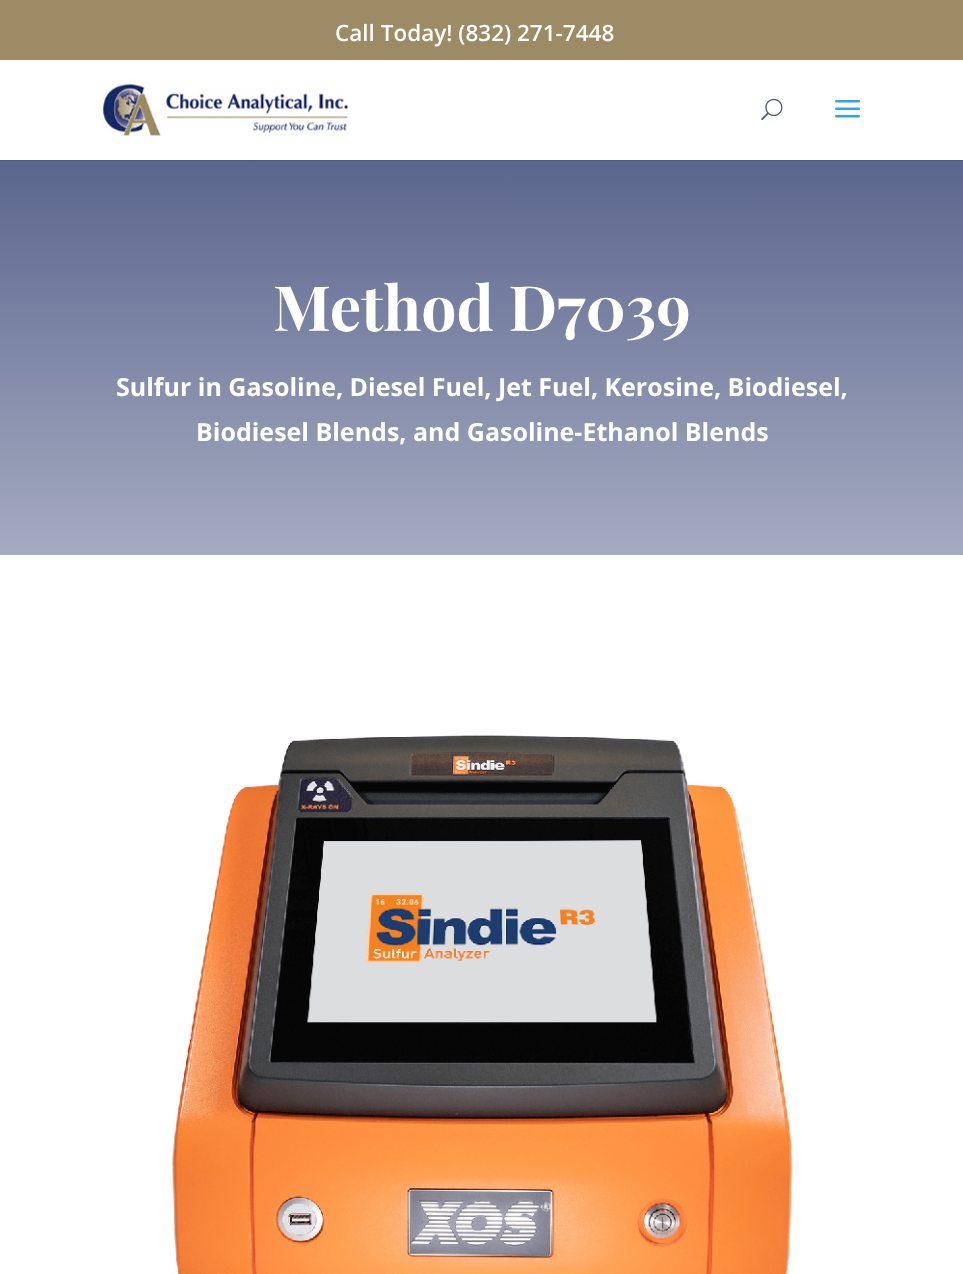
<svg xmlns="http://www.w3.org/2000/svg" width="963" height="1274">
	<defs>
		<linearGradient id="g1" gradientUnits="userSpaceOnUse" x1="482" y1="159" x2="482" y2="555"><stop offset="0" stop-color="#5B668E" /><stop offset="1" stop-color="#A5ABC1" /></linearGradient>
	</defs>
	<rect width="100%" height="100%" fill="#FFFFFF" />
	<rect x="0" y="0" width="963" height="60" fill="#9D8B65" />
	<text x="335" y="41" font-family="Open Sans" font-size="22.5" font-weight="600" fill="#FFFFFF">Call Today! (832) 271-7448</text>
	<path d="M0 160V161H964V61V160Z" fill="#525C80" />
	<image x="102" y="83" width="247" height="53" href="assets/img1.png" />
	<image x="761" y="98" width="22" height="23" href="assets/img2.png" />
	<image x="835" y="100" width="25" height="18" href="assets/img3.png" />
	<rect x="0" y="161" width="963" height="394" fill="url(#g1)" />
	<text x="273" y="331" font-family="Playfair Display" font-size="62.5" font-weight="700" fill="#FFFFFF">Method D7039</text>
	<g font-family="Open Sans" font-size="25" font-weight="700" fill="#FFFFFF">
		<text x="116" y="396">Sulfur in Gasoline, Diesel Fuel, Jet Fuel, Kerosine, Biodiesel,</text>
		<text x="196" y="441">Biodiesel Blends, and Gasoline-Ethanol Blends</text>
	</g>
	<image x="172" y="735" width="621" height="539" href="assets/img4.png" />
</svg>
